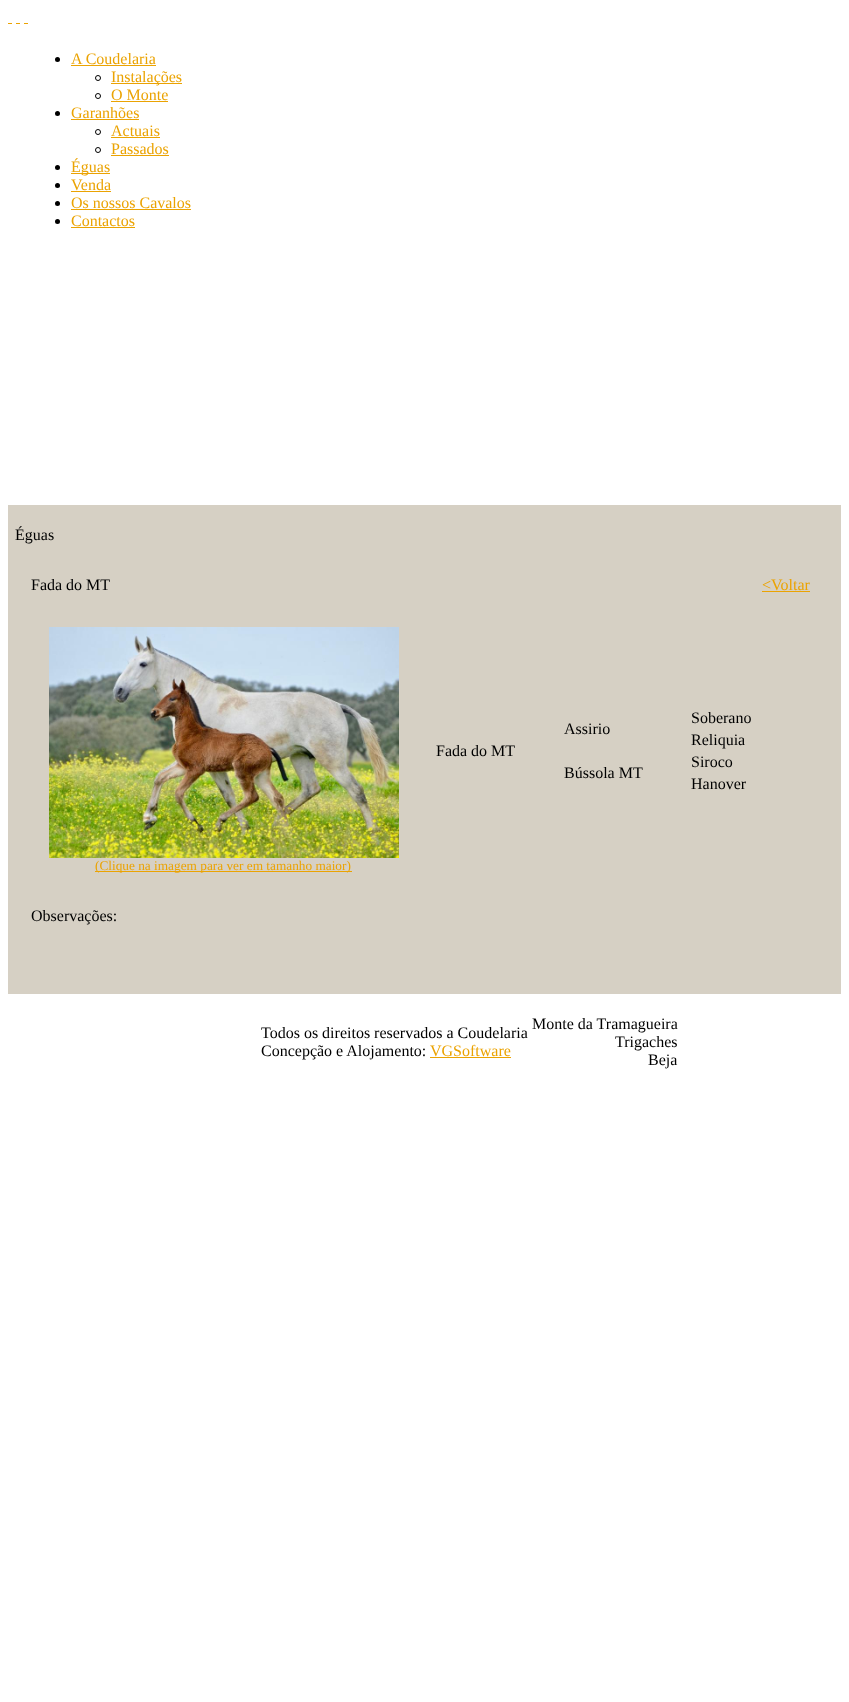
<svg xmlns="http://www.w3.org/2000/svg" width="849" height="1702">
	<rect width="100%" height="100%" fill="#FFFFFF" />
	<rect x="8" y="23" width="4" height="1" fill="#EBA302" />
	<rect x="16" y="23" width="4" height="1" fill="#EBA302" />
	<rect x="24" y="23" width="4" height="1" fill="#EBA302" />
	<circle cx="57.5" cy="59.5" r="2.5" fill="#000000" />
	<text x="71" y="64" font-family="Liberation Serif" font-size="16" fill="#EBA302">A Coudelaria</text>
	<rect x="71" y="65" width="85" height="1" fill="#EBA302" />
	<circle cx="98" cy="78" r="2.5" fill="none" stroke="#000000" />
	<rect x="111" y="83" width="71" height="1" fill="#EBA302" />
	<text x="111" y="82" font-family="Liberation Serif" font-size="16" fill="#EBA302">Instalações</text>
	<circle cx="98" cy="96" r="2.5" fill="none" stroke="#000000" />
	<text x="111" y="100" font-family="Liberation Serif" font-size="16" fill="#EBA302">O Monte</text>
	<rect x="111" y="101" width="57" height="1" fill="#EBA302" />
	<circle cx="57.5" cy="113.5" r="2.5" fill="#000000" />
	<text x="71" y="118" font-family="Liberation Serif" font-size="16" fill="#EBA302">Garanhões</text>
	<rect x="71" y="119" width="68" height="1" fill="#EBA302" />
	<circle cx="98" cy="132" r="2.5" fill="none" stroke="#000000" />
	<text x="111" y="136" font-family="Liberation Serif" font-size="16" fill="#EBA302">Actuais</text>
	<rect x="111" y="137" width="49" height="1" fill="#EBA302" />
	<circle cx="98" cy="150" r="2.5" fill="none" stroke="#000000" />
	<text x="111" y="154" font-family="Liberation Serif" font-size="16" fill="#EBA302">Passados</text>
	<rect x="111" y="155" width="58" height="1" fill="#EBA302" />
	<circle cx="57.5" cy="167.5" r="2.5" fill="#000000" />
	<rect x="71" y="173" width="39" height="1" fill="#EBA302" />
	<text x="71" y="172" font-family="Liberation Serif" font-size="16" fill="#EBA302">Éguas</text>
	<circle cx="57.5" cy="185.5" r="2.5" fill="#000000" />
	<text x="71" y="190" font-family="Liberation Serif" font-size="16" fill="#EBA302">Venda</text>
	<rect x="71" y="191" width="40" height="1" fill="#EBA302" />
	<circle cx="57.5" cy="203.5" r="2.5" fill="#000000" />
	<text x="71" y="208" font-family="Liberation Serif" font-size="16" fill="#EBA302">Os nossos Cavalos</text>
	<rect x="71" y="209" width="120" height="1" fill="#EBA302" />
	<circle cx="57.5" cy="221.5" r="2.5" fill="#000000" />
	<text x="71" y="226" font-family="Liberation Serif" font-size="16" fill="#EBA302">Contactos</text>
	<rect x="71" y="227" width="64" height="1" fill="#EBA302" />
	<rect x="8" y="505" width="833" height="489" fill="#D6D0C4" />
	<g font-family="Liberation Serif" font-size="16" fill="#000000">
		<text x="15" y="540">Éguas</text>
		<text x="31" y="590">Fada do MT</text>
	</g>
	<text x="762" y="590" font-family="Liberation Serif" font-size="16" fill="#EBA302">&lt;Voltar</text>
	<rect x="762" y="591" width="48" height="1" fill="#EBA302" />
	<g font-family="Liberation Serif" font-size="16" fill="#000000">
		<text x="691" y="723">Soberano</text>
		<text x="564" y="734">Assirio</text>
		<text x="436" y="756">Fada do MT</text>
		<text x="691" y="745">Reliquia</text>
		<text x="691" y="767">Siroco</text>
		<text x="564" y="778">Bússola MT</text>
		<text x="691" y="789">Hanover</text>
	</g>
	<image x="49" y="627" width="350" height="231" href="assets/img1.png" />
	<rect x="95" y="871" width="257" height="1" fill="#EBA302" />
	<text x="95" y="870" font-family="Liberation Serif" font-size="13.3" fill="#EBA302">(Clique na imagem para ver em tamanho maior)</text>
	<g font-family="Liberation Serif" font-size="16" fill="#000000">
		<text x="31" y="921">Observações:</text>
		<text x="261" y="1038">Todos os direitos reservados a Coudelaria</text>
		<text x="261" y="1056">Concepção e Alojamento:</text>
	</g>
	<text x="430" y="1056" font-family="Liberation Serif" font-size="16" fill="#EBA302">VGSoftware</text>
	<rect x="430" y="1057" width="81" height="1" fill="#EBA302" />
	<g font-family="Liberation Serif" font-size="16" fill="#000000">
		<text x="532" y="1029">Monte da Tramagueira</text>
		<text x="615" y="1047">Trigaches</text>
		<text x="648" y="1065">Beja</text>
	</g>
</svg>
